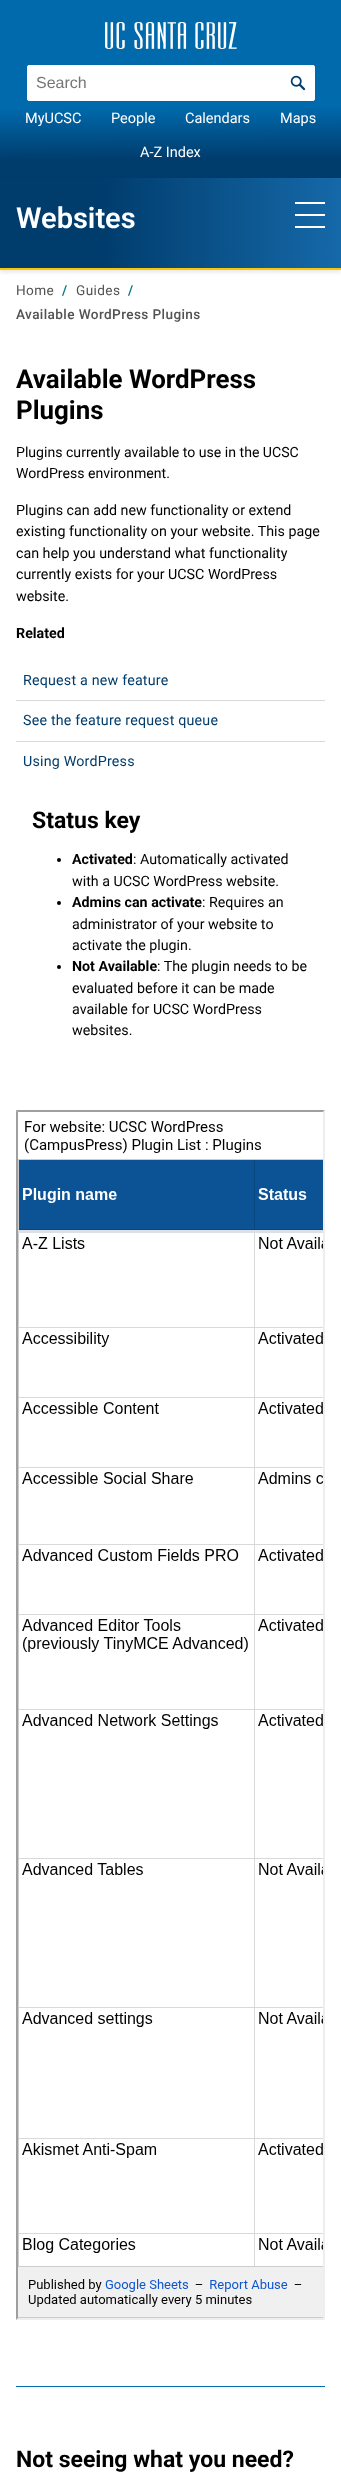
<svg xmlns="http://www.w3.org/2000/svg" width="341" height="2492">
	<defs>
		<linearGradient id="g1" gradientUnits="userSpaceOnUse" x1="171" y1="178" x2="170" y2="0"><stop offset="0.1" stop-color="#003C6C" /><stop offset="0.4" stop-color="#006AAD" /></linearGradient>
		<linearGradient id="g2" gradientUnits="userSpaceOnUse" x1="0" y1="223" x2="341" y2="223"><stop offset="0.29" stop-color="#003C6C" /><stop offset="1" stop-color="#1569A9" /></linearGradient>
	</defs>
	<rect width="100%" height="100%" fill="#FFFFFF" />
	<rect x="0" y="0" width="341" height="178" fill="url(#g1)" />
	<image x="105" y="22" width="132" height="27" href="assets/img1.png" />
	<rect x="27.5" y="65.5" width="287" height="35" rx="1.5" fill="#FFFFFF" stroke="#FFFFFF" />
	<text x="36" y="88" font-family="Liberation Sans" font-size="16" fill="#757575">Search</text>
	<image x="290" y="75" width="16" height="16" href="assets/img2.png" />
	<g font-family="Roboto" font-size="14.5" fill="#FFFFFF">
		<text x="25" y="123">MyUCSC</text>
		<text x="111" y="123">People</text>
		<text x="185" y="123">Calendars</text>
		<text x="280" y="123">Maps</text>
		<text x="140" y="157">A-Z Index</text>
	</g>
	<rect x="0" y="180" width="341" height="92" fill="#000000" fill-opacity="0.1" filter="blur(2px)" />
	<rect x="0" y="178" width="341" height="90" fill="url(#g2)" />
	<text x="16" y="228" font-family="Roboto" font-size="29" font-weight="600" fill="#FFFFFF">Websites</text>
	<rect x="295" y="202" width="30" height="2" fill="#FFFFFF" />
	<rect x="295" y="214" width="30" height="2" fill="#FFFFFF" />
	<rect x="295" y="226" width="30" height="2" fill="#FFFFFF" />
	<rect x="0" y="268" width="341" height="2" fill="#FDC700" />
	<text x="16" y="295" font-family="Roboto" font-size="13.6" letter-spacing="0.4" fill="#525252">Home</text>
	<text x="62" y="295" font-family="Roboto" font-size="13.6" font-weight="600" letter-spacing="0.4" fill="#007988">/</text>
	<text x="76" y="295" font-family="Roboto" font-size="13.6" letter-spacing="0.4" fill="#525252">Guides</text>
	<text x="128" y="295" font-family="Roboto" font-size="13.6" font-weight="600" letter-spacing="0.4" fill="#007988">/</text>
	<text x="16" y="319" font-family="Roboto" font-size="13.6" font-weight="500" letter-spacing="0.4" fill="#525252">Available WordPress Plugins</text>
	<g font-family="Roboto" font-size="25.9" font-weight="700" fill="#000000">
		<text x="16" y="388">Available WordPress</text>
		<text x="16" y="419">Plugins</text>
	</g>
	<g font-family="Roboto" font-size="14.1" fill="#000000">
		<text x="16" y="457">Plugins currently available to use in the UCSC</text>
		<text x="16" y="478">WordPress environment.</text>
	</g>
	<g font-family="Roboto" font-size="14.25" fill="#000000">
		<text x="16" y="515">Plugins can add new functionality or extend</text>
		<text x="16" y="536">existing functionality on your website. This page</text>
		<text x="16" y="558">can help you understand what functionality</text>
		<text x="16" y="579">currently exists for your UCSC WordPress</text>
		<text x="16" y="601">website.</text>
	</g>
	<text x="16" y="638" font-family="Roboto" font-size="14.25" font-weight="700" fill="#000000">Related</text>
	<rect x="16" y="700" width="309" height="1" fill="#D9D9D9" />
	<text x="23" y="685" font-family="Roboto" font-size="14.25" letter-spacing="0.2" fill="#003C6C">Request a new feature</text>
	<rect x="16" y="741" width="309" height="1" fill="#D9D9D9" />
	<g font-family="Roboto" font-size="14.25" letter-spacing="0.2" fill="#003C6C">
		<text x="23" y="725">See the feature request queue</text>
		<text x="23" y="766">Using WordPress</text>
	</g>
	<text x="32" y="828" font-family="Roboto" font-size="23" font-weight="700" fill="#000000">Status key</text>
	<circle cx="59" cy="860" r="2" fill="#000000" />
	<text x="72" y="864" font-family="Roboto" font-size="14.25" font-weight="700" fill="#000000">Activated</text>
	<g font-family="Roboto" font-size="14.25" fill="#000000">
		<text x="133" y="864">: Automatically activated</text>
		<text x="72" y="886">with a UCSC WordPress website.</text>
	</g>
	<circle cx="59" cy="903" r="2" fill="#000000" />
	<text x="72" y="907" font-family="Roboto" font-size="14.25" font-weight="700" fill="#000000">Admins can activate</text>
	<g font-family="Roboto" font-size="14.25" fill="#000000">
		<text x="202" y="907">: Requires an</text>
		<text x="72" y="929">administrator of your website to</text>
		<text x="72" y="950">activate the plugin.</text>
	</g>
	<circle cx="59" cy="967" r="2" fill="#000000" />
	<text x="72" y="971" font-family="Roboto" font-size="14.25" font-weight="700" fill="#000000">Not Available</text>
	<g font-family="Roboto" font-size="14.25" fill="#000000">
		<text x="157" y="971">: The plugin needs to be</text>
		<text x="72" y="993">evaluated before it can be made</text>
		<text x="72" y="1014">available for UCSC WordPress</text>
		<text x="72" y="1035">websites.</text>
	</g>
	<path d="M16 1110H325L323 1112H18Z" fill="#9F9F9F" />
	<path d="M325 1110V2320L323 2318V1112Z" fill="#EEEEEE" />
	<path d="M325 2320H16L18 2318H323Z" fill="#EEEEEE" />
	<path d="M16 2320V1110L18 1112V2318Z" fill="#9F9F9F" />
	<image x="18" y="1121" width="305" height="1197" href="assets/img3.png" />
	<rect x="16" y="2386" width="309" height="1" fill="#006AAD" />
	<text x="16" y="2467" font-family="Roboto" font-size="23" font-weight="700" fill="#000000">Not seeing what you need?</text>
</svg>
